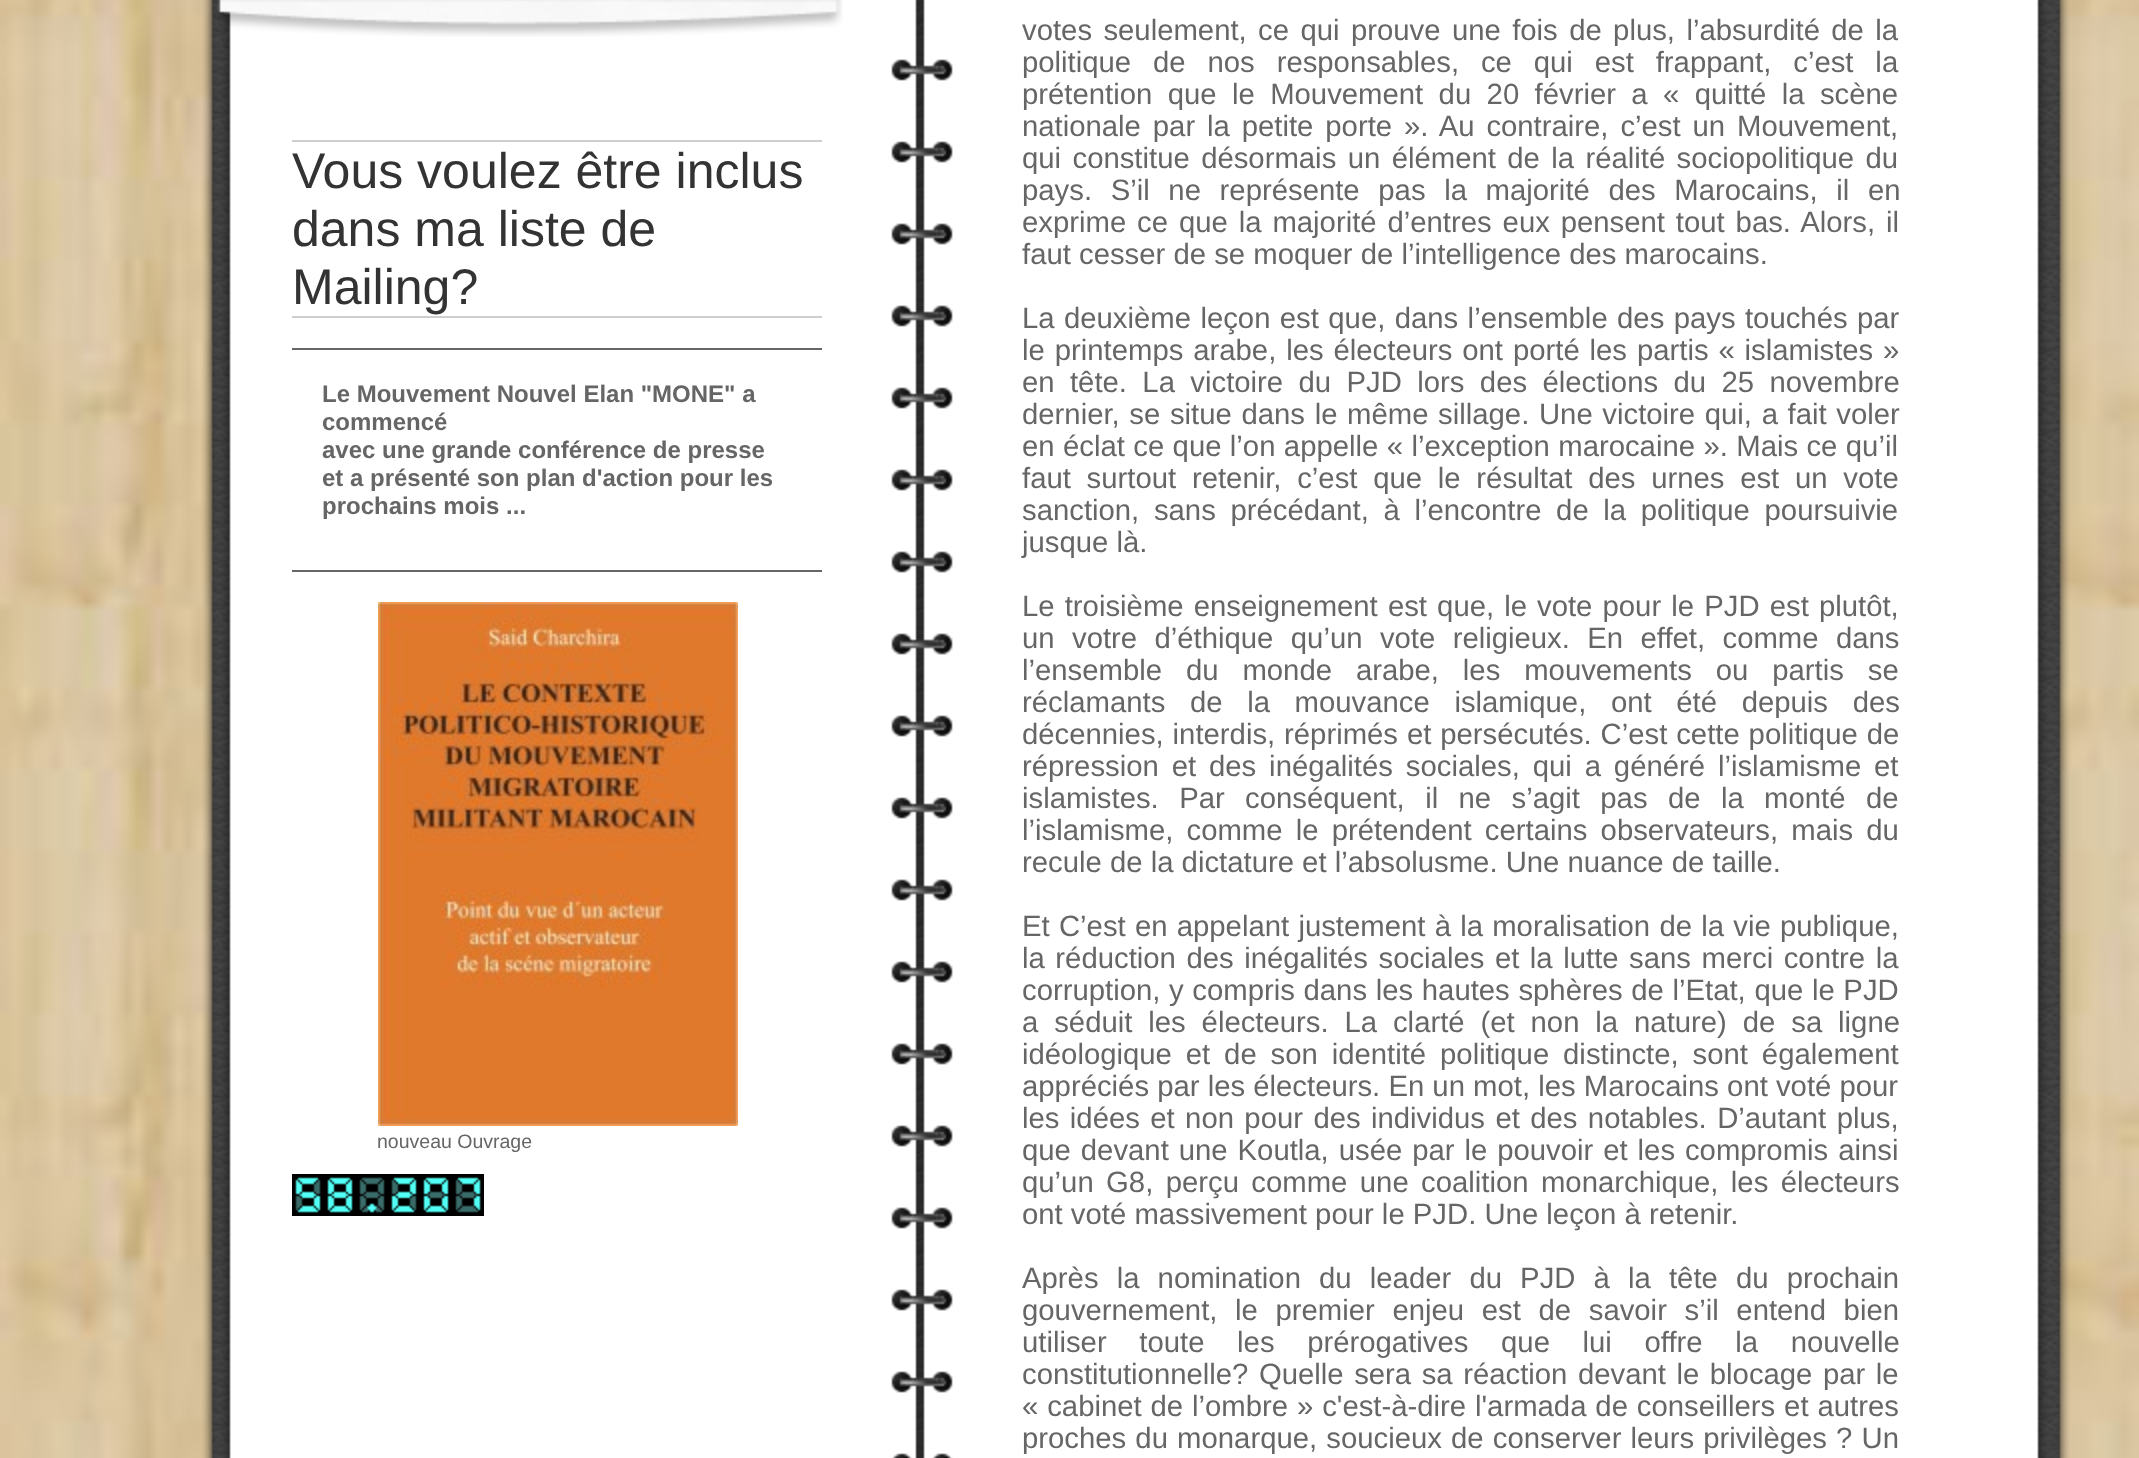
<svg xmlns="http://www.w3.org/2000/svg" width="2139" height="1458">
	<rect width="100%" height="100%" fill="#FFFFFF" />
	<image x="0" y="0" width="2139" height="1458" href="assets/img1.png" />
	<image x="202" y="0" width="1868" height="1458" href="assets/img2.png" />
	<image x="217" y="0" width="626" height="37" href="assets/img3.png" />
	<rect x="292" y="140" width="530" height="2" fill="#CECECE" />
	<rect x="292" y="316" width="530" height="2" fill="#CECECE" />
	<g font-family="Liberation Sans" font-size="50" fill="#333333">
		<text x="292" y="188">Vous voulez être inclus</text>
		<text x="292" y="246">dans ma liste de</text>
		<text x="292" y="304">Mailing?</text>
	</g>
	<rect x="292" y="348" width="530" height="2" fill="#666666" />
	<g font-family="Liberation Sans" font-size="24" font-weight="700" fill="#666666">
		<text x="322" y="402">Le Mouvement Nouvel Elan "MONE" a</text>
		<text x="322" y="430">commencé</text>
		<text x="322" y="458">avec une grande conférence de presse</text>
		<text x="322" y="486">et a présenté son plan d'action pour les</text>
		<text x="322" y="514">prochains mois ...</text>
	</g>
	<rect x="292" y="570" width="530" height="2" fill="#666666" />
	<image x="378" y="602" width="360" height="524" href="assets/img4.png" />
	<text x="377" y="1148" font-family="Liberation Sans" font-size="19.5" fill="#666666">nouveau Ouvrage</text>
	<image x="292" y="1174" width="32" height="42" href="assets/img5.png" />
	<image x="324" y="1174" width="32" height="42" href="assets/img6.png" />
	<image x="356" y="1174" width="32" height="42" href="assets/img7.png" />
	<image x="388" y="1174" width="32" height="42" href="assets/img8.png" />
	<image x="420" y="1174" width="32" height="42" href="assets/img9.png" />
	<image x="452" y="1174" width="32" height="42" href="assets/img10.png" />
	<g font-family="Liberation Sans" font-size="29.3" fill="#666666">
		<text x="1022" y="40" word-spacing="3.25">votes seulement, ce qui prouve une fois de plus, l’absurdité de la</text>
		<text x="1022" y="72" word-spacing="13.75">politique de nos responsables, ce qui est frappant, c’est la</text>
		<text x="1022" y="104" word-spacing="7.25">prétention que le Mouvement du 20 février a « quitté la scène</text>
		<text x="1022" y="136" word-spacing="3.75">nationale par la petite porte ». Au contraire, c’est un Mouvement,</text>
		<text x="1022" y="168" word-spacing="3.25">qui constitue désormais un élément de la réalité sociopolitique du</text>
		<text x="1022" y="200" word-spacing="10.5">pays. S’il ne représente pas la majorité des Marocains, il en</text>
		<text x="1022" y="232" word-spacing="2.75">exprime ce que la majorité d’entres eux pensent tout bas. Alors, il</text>
		<text x="1022" y="264">faut cesser de se moquer de l’intelligence des marocains.</text>
		<text x="1022" y="328" word-spacing="1.25">La deuxième leçon est que, dans l’ensemble des pays touchés par</text>
		<text x="1022" y="360" word-spacing="1.75">le printemps arabe, les électeurs ont porté les partis « islamistes »</text>
		<text x="1022" y="392" word-spacing="7.25">en tête. La victoire du PJD lors des élections du 25 novembre</text>
		<text x="1022" y="424" word-spacing="1.5">dernier, se situe dans le même sillage. Une victoire qui, a fait voler</text>
		<text x="1022" y="456" word-spacing="0.25">en éclat ce que l’on appelle « l’exception marocaine ». Mais ce qu’il</text>
		<text x="1022" y="488" word-spacing="7.6">faut surtout retenir, c’est que le résultat des urnes est un vote</text>
		<text x="1022" y="520" word-spacing="6.5">sanction, sans précédant, à l’encontre de la politique poursuivie</text>
		<text x="1022" y="552">jusque là.</text>
		<text x="1022" y="616" word-spacing="2">Le troisième enseignement est que, le</text>
		<text x="1537" y="616" word-spacing="2">vote pour le PJD est plutôt,</text>
		<text x="1022" y="648" word-spacing="9.25">un votre d’éthique qu’un vote religieux. En effet, comme dans</text>
		<text x="1022" y="680" word-spacing="15.75">l’ensemble du monde arabe, les mouvements ou partis se</text>
		<text x="1022" y="712" word-spacing="16.5">réclamants de la mouvance islamique, ont été depuis des</text>
		<text x="1022" y="744" word-spacing="0.75">décennies, interdis, réprimés et persécutés. C’est cette politique de</text>
		<text x="1022" y="776" word-spacing="4.75">répression et des inégalités sociales, qui a généré l’islamisme et</text>
		<text x="1022" y="808" word-spacing="12.25">islamistes. Par conséquent, il ne s’agit pas de la monté de</text>
		<text x="1022" y="840" word-spacing="5">l’islamisme, comme le prétendent certains observateurs, mais du</text>
		<text x="1022" y="872">recule de la dictature et l’absolusme. Une nuance de taille.</text>
		<text x="1022" y="936" word-spacing="1.1">Et C’est en appelant justement à la moralisation de la vie publique,</text>
		<text x="1022" y="968" word-spacing="2.4">la réduction des inégalités sociales et la lutte sans merci contre la</text>
		<text x="1022" y="1000" word-spacing="0.5">corruption, y compris dans les hautes sphères de l’Etat, que le PJD</text>
		<text x="1022" y="1032" word-spacing="7.75">a séduit les électeurs. La clarté (et non la nature) de sa ligne</text>
		<text x="1022" y="1064" word-spacing="5.75">idéologique et de son identité politique distincte, sont également</text>
		<text x="1022" y="1096">appréciés par les électeurs. En un mot, les Marocains ont voté pour</text>
		<text x="1022" y="1128" word-spacing="2.25">les idées et non pour des individus et des notables. D’autant plus,</text>
		<text x="1022" y="1160" word-spacing="1.8">que devant une Koutla, usée par le pouvoir et les compromis ainsi</text>
		<text x="1022" y="1192" word-spacing="4.25">qu’un G8, perçu comme une coalition monarchique, les électeurs</text>
		<text x="1022" y="1224">ont voté massivement pour le PJD. Une leçon à retenir.</text>
		<text x="1022" y="1288" word-spacing="10">Après la nomination du leader du PJD à la tête du prochain</text>
		<text x="1022" y="1320" word-spacing="9.5">gouvernement, le premier enjeu est de savoir s’il entend bien</text>
		<text x="1022" y="1352" word-spacing="24.5">utiliser toute les prérogatives que lui offre la nouvelle</text>
		<text x="1022" y="1384" word-spacing="2.4">constitutionnelle? Quelle sera sa réaction devant le blocage par le</text>
		<text x="1022" y="1416" word-spacing="0.75">« cabinet de l’ombre » c'est-à-dire l'armada de conseillers et autres</text>
		<text x="1022" y="1448" word-spacing="1">proches du monarque, soucieux de conserver leurs privilèges ? Un</text>
	</g>
</svg>
